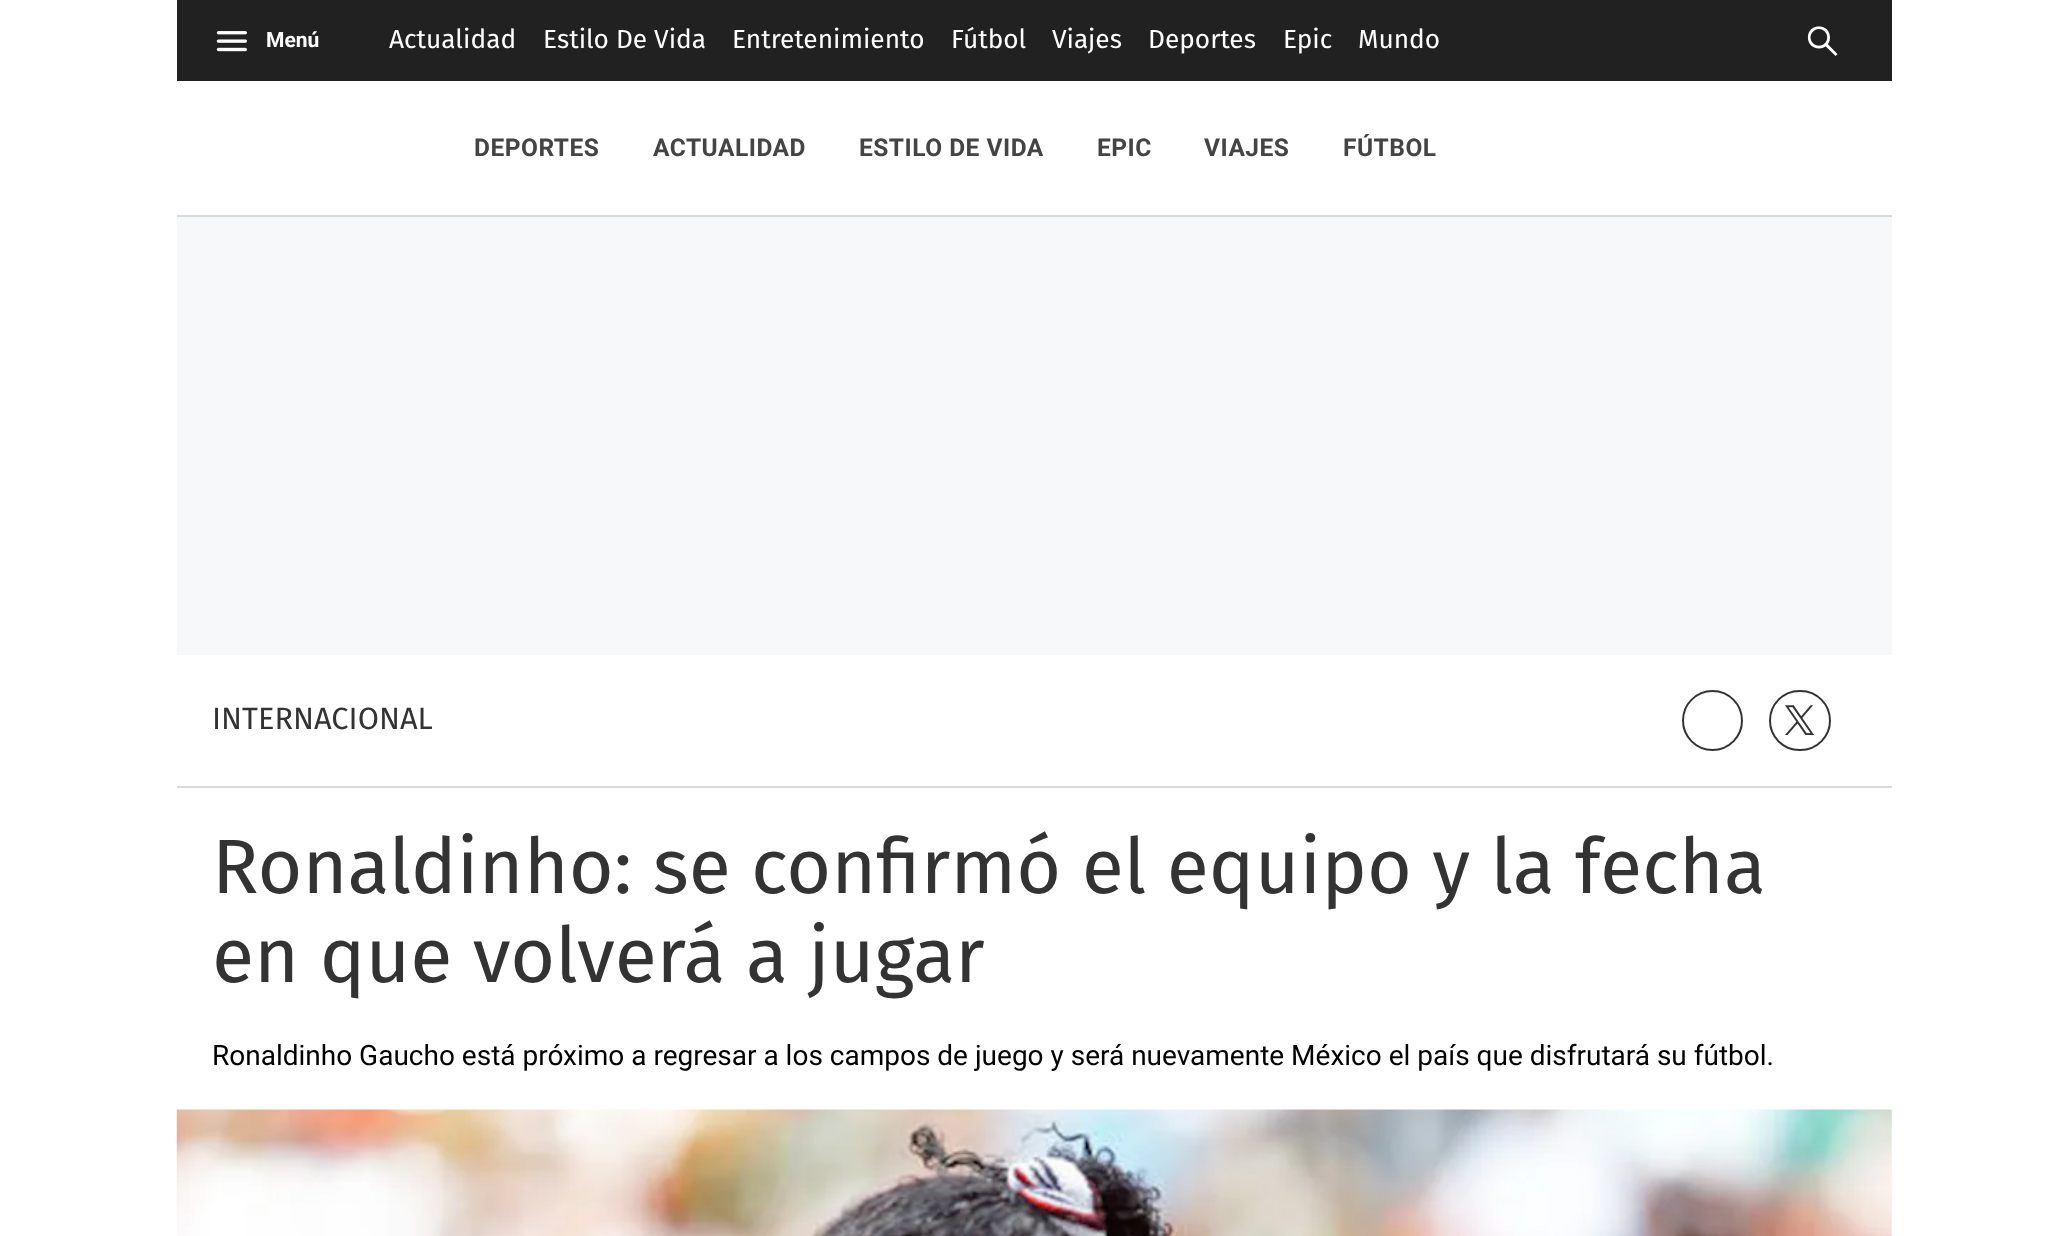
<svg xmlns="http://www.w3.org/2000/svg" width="2067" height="1236">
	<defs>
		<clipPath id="clip1"><rect x="212" y="705" width="220" height="30" /></clipPath>
	</defs>
	<rect width="100%" height="100%" fill="#FFFFFF" />
	<rect x="177" y="0" width="1715" height="81" fill="#212121" />
	<image x="216" y="31" width="31" height="21" href="assets/img1.png" />
	<text x="266" y="47" font-family="Roboto" font-size="21" font-weight="700" fill="#FFFFFF">Menú</text>
	<g font-family="Fira Sans" font-size="26.25" fill="#FFFFFF">
		<text x="389" y="48">Actualidad</text>
		<text x="543" y="48">Estilo De Vida</text>
		<text x="732" y="48">Entretenimiento</text>
		<text x="951" y="48">Fútbol</text>
		<text x="1052" y="48">Viajes</text>
		<text x="1148" y="48">Deportes</text>
		<text x="1283" y="48">Epic</text>
		<text x="1358" y="48">Mundo</text>
	</g>
	<image x="1807" y="26" width="31" height="30" href="assets/img2.png" />
	<rect x="177" y="215" width="1715" height="2" fill="#DADADA" />
	<g font-family="Roboto" font-size="24.5" font-weight="700" letter-spacing="0.5" fill="#444444">
		<text x="474" y="156">DEPORTES</text>
		<text x="653" y="156">ACTUALIDAD</text>
		<text x="859" y="156">ESTILO DE VIDA</text>
		<text x="1097" y="156">EPIC</text>
		<text x="1204" y="156">VIAJES</text>
		<text x="1343" y="156">FÚTBOL</text>
	</g>
	<rect x="177" y="217" width="1715" height="438" fill="#F7F8F9" />
	<rect x="177" y="786" width="1715" height="2" fill="#DADADA" />
	<g clip-path="url(#clip1)">
		<text x="212" y="729" font-family="Fira Sans" font-size="30.75" fill="#333333">INTERNACIONAL</text>
	</g>
	<circle cx="1712.5" cy="720.5" r="29.5" fill="none" stroke="#333333" stroke-width="2" />
	<rect x="1770" y="691" width="60" height="59" rx="29.5" fill="none" stroke="#333333" stroke-width="2" />
	<image x="1785" y="705" width="29" height="30" href="assets/img3.png" />
	<g font-family="Fira Sans" font-size="77" fill="#333333">
		<text x="212" y="893">Ronaldinho: se confirmó el equipo y la fecha</text>
		<text x="212" y="982">en que volverá a jugar</text>
	</g>
	<text x="212" y="1065" font-family="Roboto" font-size="28" fill="#000000">Ronaldinho Gaucho está próximo a regresar a los campos de juego y será nuevamente México el país que disfrutará su fútbol.</text>
	<image x="176" y="1109" width="1716" height="127" href="assets/img4.png" />
</svg>
